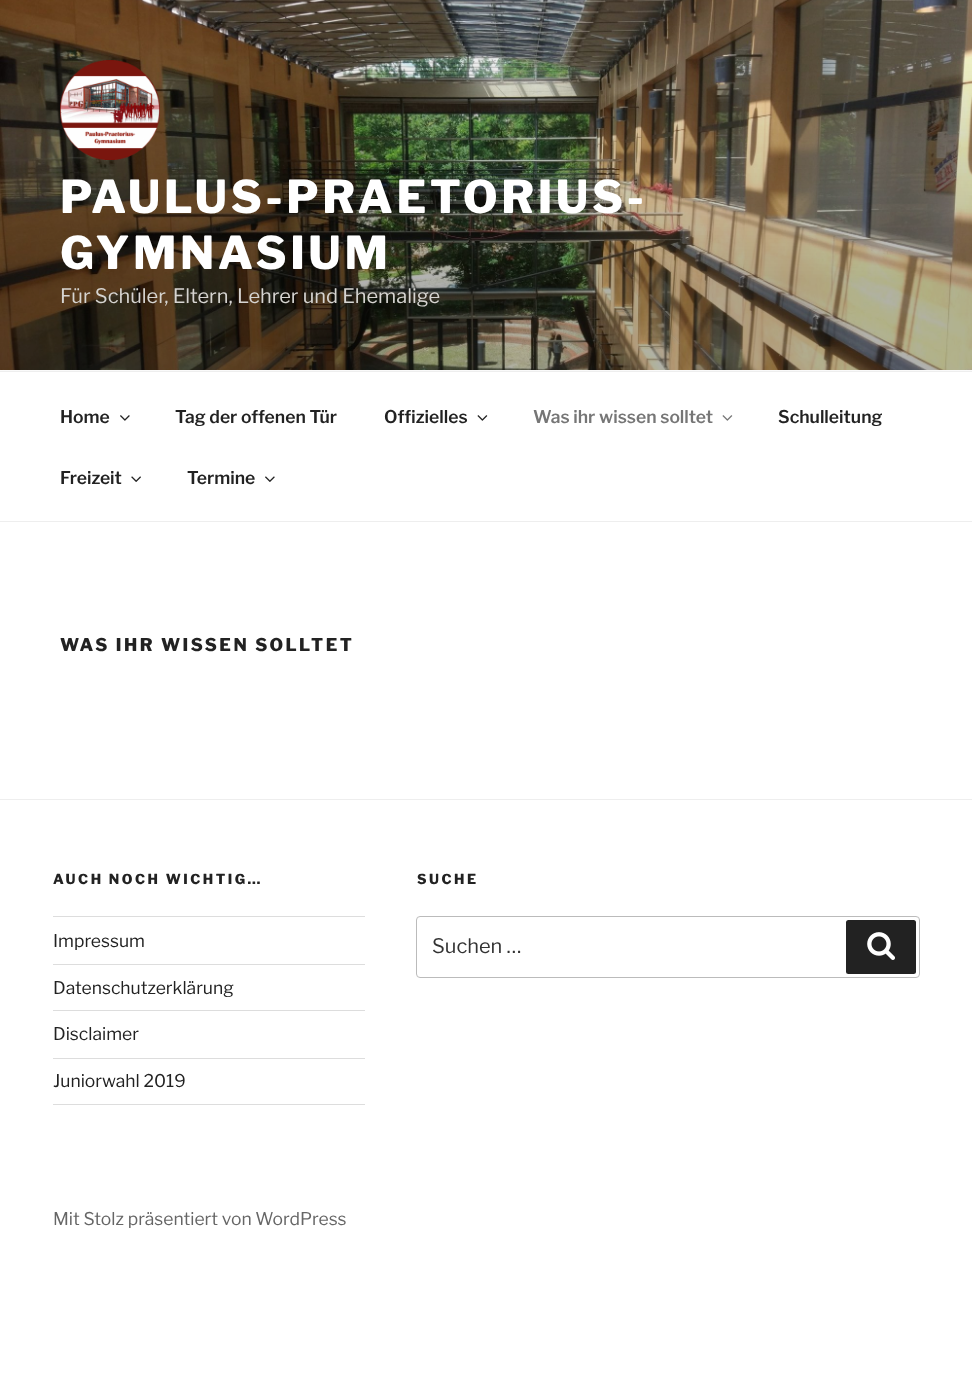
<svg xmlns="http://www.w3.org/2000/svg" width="972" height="1373">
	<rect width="100%" height="100%" fill="#FFFFFF" />
	<rect x="0" y="370" width="972" height="1" fill="#FAFAFA" />
	<image x="0" y="0" width="972" height="370" href="assets/img1.png" />
	<image x="60" y="60" width="100" height="100" href="assets/img2.png" />
	<g font-family="Libre Franklin" font-size="45" font-weight="100" letter-spacing="3.6" fill="#FFFFFF">
		<text x="60" y="213">PAULUS-PRAETORIUS-</text>
		<text x="60" y="269">GYMNASIUM</text>
	</g>
	<text x="60" y="303" font-family="'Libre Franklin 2'" font-size="20" font-weight="100" fill="#D6D4D1">Für Schüler, Eltern, Lehrer und Ehemalige</text>
	<rect x="0" y="371" width="972" height="1" fill="#EEEEEE" />
	<rect x="0" y="521" width="972" height="1" fill="#EEEEEE" />
	<text x="60" y="423" font-family="'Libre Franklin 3'" font-size="17.5" font-weight="100" fill="#222222">Home</text>
	<image x="120" y="415" width="10" height="6" href="assets/img3.png" />
	<g font-family="'Libre Franklin 3'" font-size="17.5" font-weight="100" fill="#222222">
		<text x="175" y="423">Tag der offenen Tür</text>
		<text x="384" y="423">Offizielles</text>
	</g>
	<image x="477" y="415" width="11" height="6" href="assets/img4.png" />
	<text x="533" y="423" font-family="'Libre Franklin 3'" font-size="17.5" font-weight="100" fill="#767676">Was ihr wissen solltet</text>
	<image x="722" y="415" width="11" height="6" href="assets/img5.png" />
	<g font-family="'Libre Franklin 3'" font-size="17.5" font-weight="100" fill="#222222">
		<text x="778" y="423">Schulleitung</text>
		<text x="60" y="484">Freizeit</text>
	</g>
	<image x="131" y="476" width="10" height="6" href="assets/img6.png" />
	<text x="187" y="484" font-family="'Libre Franklin 3'" font-size="17.5" font-weight="100" fill="#222222">Termine</text>
	<image x="265" y="476" width="10" height="6" href="assets/img7.png" />
	<text x="60" y="651" font-family="Libre Franklin" font-size="17.5" font-weight="100" letter-spacing="2.45" fill="#222222">WAS IHR WISSEN SOLLTET</text>
	<rect x="0" y="799" width="972" height="1" fill="#EEEEEE" />
	<text x="53" y="884" font-family="Libre Franklin" font-size="13.75" font-weight="100" letter-spacing="2.5" fill="#222222">AUCH NOCH WICHTIG…</text>
	<rect x="53" y="916" width="312" height="1" fill="#DDDDDD" />
	<rect x="53" y="964" width="312" height="1" fill="#DDDDDD" />
	<text x="53" y="947" font-family="'Libre Franklin 2'" font-size="17.5" font-weight="100" fill="#222222">Impressum</text>
	<rect x="53" y="1010" width="312" height="1" fill="#DDDDDD" />
	<text x="53" y="994" font-family="'Libre Franklin 2'" font-size="17.5" font-weight="100" fill="#222222">Datenschutzerklärung</text>
	<rect x="53" y="1058" width="312" height="1" fill="#DDDDDD" />
	<text x="53" y="1040" font-family="'Libre Franklin 2'" font-size="17.5" font-weight="100" fill="#222222">Disclaimer</text>
	<rect x="53" y="1104" width="312" height="1" fill="#DDDDDD" />
	<text x="53" y="1087" font-family="'Libre Franklin 2'" font-size="17.5" font-weight="100" fill="#222222">Juniorwahl 2019</text>
	<text x="417" y="884" font-family="Libre Franklin" font-size="13.75" font-weight="100" letter-spacing="2.5" fill="#222222">SUCHE</text>
	<rect x="416.5" y="916.5" width="503" height="61" rx="3.5" fill="none" stroke="#BBBBBB" />
	<text x="432" y="953" font-family="'Libre Franklin 2'" font-size="20" font-weight="100" fill="#333333">Suchen …</text>
	<rect x="846" y="920" width="70" height="54" rx="2.5" fill="#222222" />
	<image x="867" y="932" width="28" height="28" href="assets/img8.png" />
	<text x="53" y="1225" font-family="'Libre Franklin 2'" font-size="17.5" font-weight="100" fill="#666666">Mit Stolz präsentiert von WordPress</text>
</svg>
